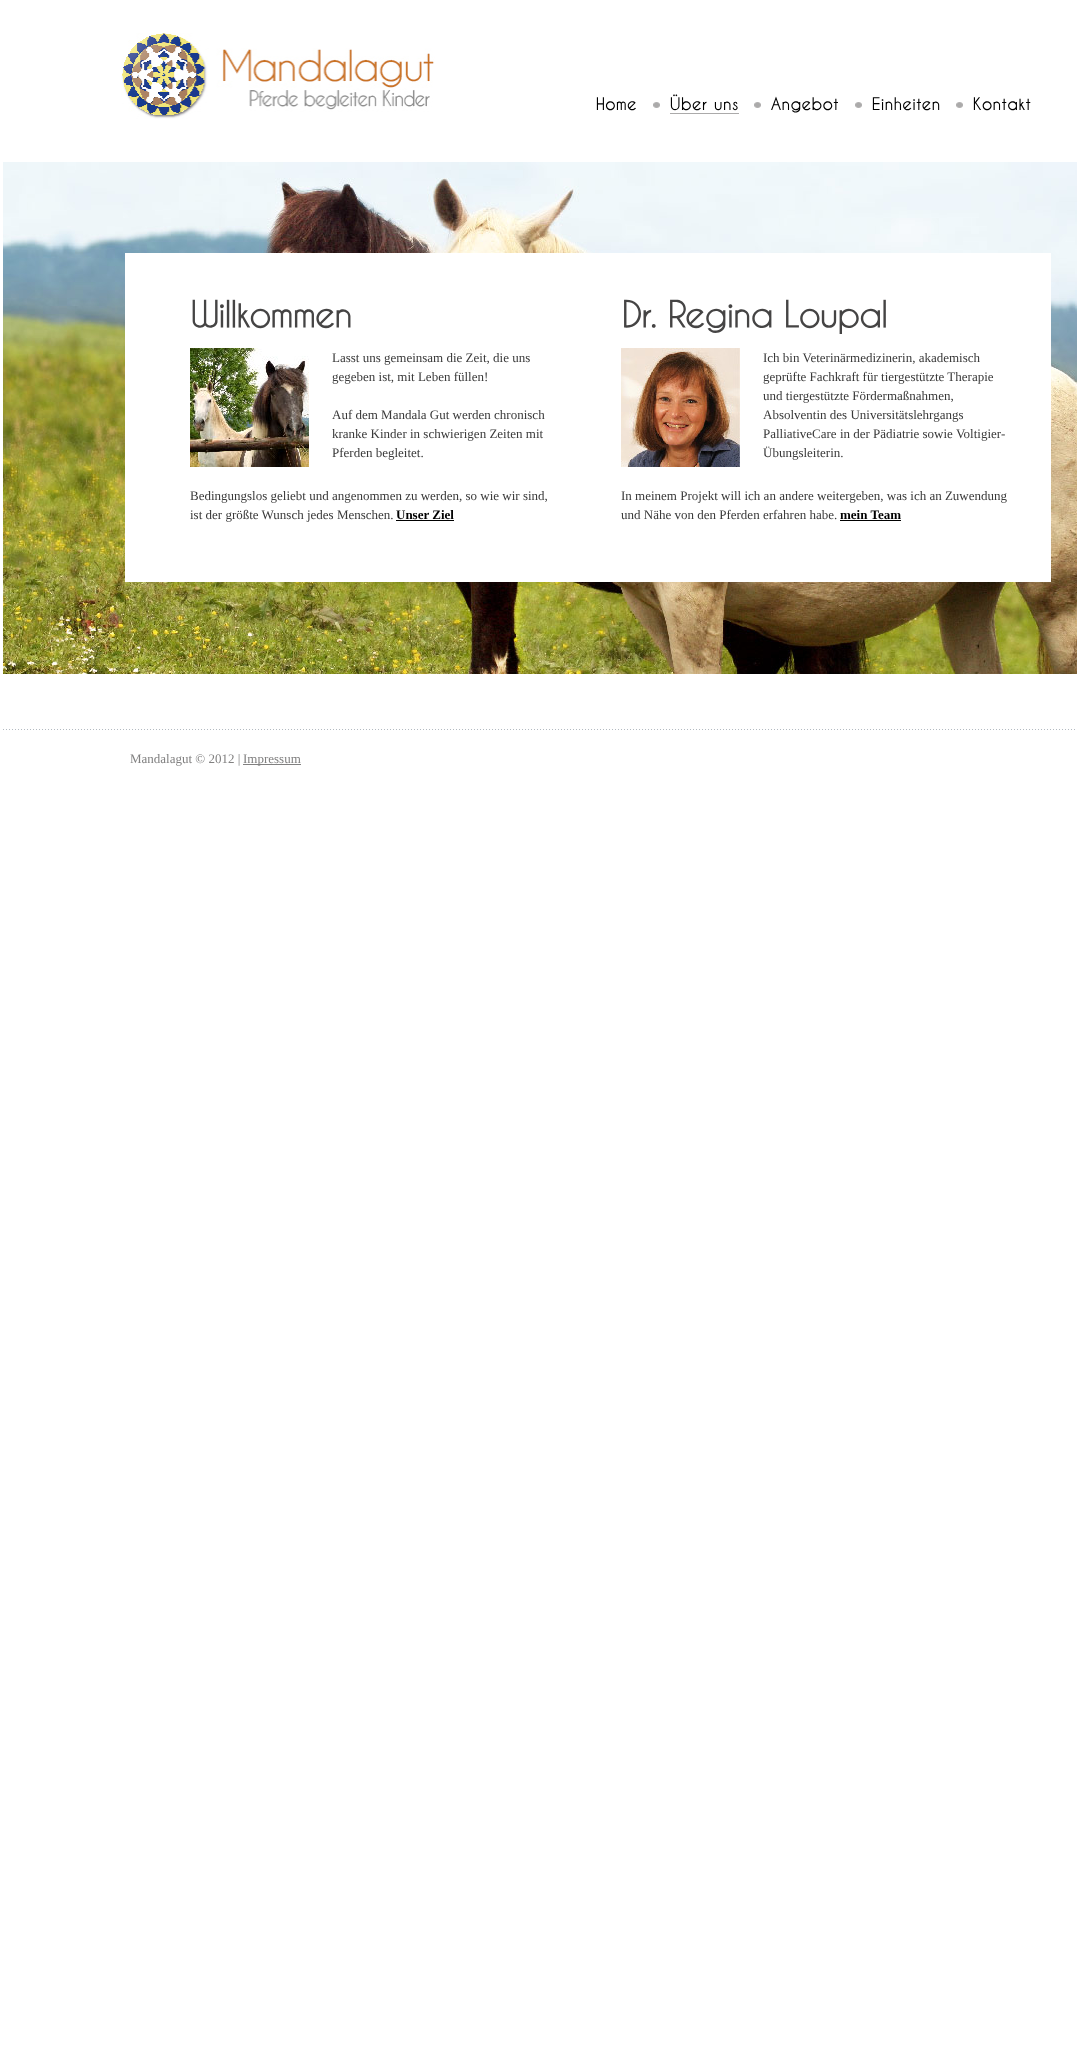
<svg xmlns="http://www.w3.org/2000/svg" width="1077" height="2072">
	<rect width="100%" height="100%" fill="#FFFFFF" />
	<image x="121" y="33" width="314" height="86" href="assets/img1.png" />
	<image x="596" y="97" width="40" height="14" href="assets/img2.png" />
	<image x="653" y="102" width="7" height="6" href="assets/img3.png" />
	<rect x="670" y="113" width="69" height="1" fill="#ABAAAA" />
	<image x="670" y="94" width="37" height="17" href="assets/img4.png" />
	<image x="714" y="101" width="24" height="10" href="assets/img5.png" />
	<image x="754" y="102" width="7" height="6" href="assets/img3.png" />
	<image x="771" y="96" width="67" height="17" href="assets/img6.png" />
	<image x="855" y="102" width="7" height="6" href="assets/img3.png" />
	<image x="872" y="97" width="68" height="14" href="assets/img7.png" />
	<image x="956" y="102" width="7" height="6" href="assets/img3.png" />
	<image x="973" y="97" width="58" height="14" href="assets/img8.png" />
	<image x="3" y="162" width="1074" height="512" href="assets/img9.png" />
	<rect x="125" y="253" width="926" height="329" fill="#FFFFFF" />
	<image x="192" y="299" width="159" height="30" href="assets/img10.png" />
	<image x="190" y="348" width="119" height="119" href="assets/img11.png" />
	<g font-family="Liberation Serif" font-size="13" fill="#393939">
		<text x="332" y="362">Lasst uns gemeinsam die Zeit, die uns</text>
		<text x="332" y="381">gegeben ist, mit Leben füllen!</text>
		<text x="332" y="419">Auf dem Mandala Gut werden chronisch</text>
		<text x="332" y="438">kranke Kinder in schwierigen Zeiten mit</text>
		<text x="332" y="457">Pferden begleitet.</text>
		<text x="190" y="500">Bedingungslos geliebt und angenommen zu werden, so wie wir sind,</text>
		<text x="190" y="519">ist der größte Wunsch jedes Menschen.</text>
	</g>
	<text x="396" y="519" font-family="Liberation Serif" font-size="13" font-weight="700" fill="#000000">Unser Ziel</text>
	<rect x="396" y="520" width="58" height="1" fill="#000000" />
	<image x="624" y="299" width="32" height="29" href="assets/img12.png" />
	<image x="670" y="299" width="102" height="34" href="assets/img13.png" />
	<image x="786" y="299" width="100" height="35" href="assets/img14.png" />
	<image x="621" y="348" width="119" height="119" href="assets/img15.png" />
	<g font-family="Liberation Serif" font-size="13" fill="#393939">
		<text x="763" y="362">Ich bin Veterinärmedizinerin, akademisch</text>
		<text x="763" y="381">geprüfte Fachkraft für tiergestützte Therapie</text>
		<text x="763" y="400">und tiergestützte Fördermaßnahmen,</text>
		<text x="763" y="419">Absolventin des Universitätslehrgangs</text>
		<text x="763" y="438">PalliativeCare in der Pädiatrie sowie Voltigier-</text>
		<text x="763" y="457">Übungsleiterin.</text>
		<text x="621" y="500">In meinem Projekt will ich an andere weitergeben, was ich an Zuwendung</text>
		<text x="621" y="519">und Nähe von den Pferden erfahren habe.</text>
	</g>
	<text x="840" y="519" font-family="Liberation Serif" font-size="13" font-weight="700" fill="#000000">mein Team</text>
	<rect x="840" y="520" width="61" height="1" fill="#000000" />
	<image x="3" y="729" width="1072" height="1" href="assets/img16.png" />
	<text x="130" y="763" font-family="Liberation Serif" font-size="13" fill="#818080">Mandalagut © 2012 |</text>
	<rect x="243" y="764" width="58" height="1" fill="#818080" />
	<text x="243" y="763" font-family="Liberation Serif" font-size="13" fill="#818080">Impressum</text>
</svg>
